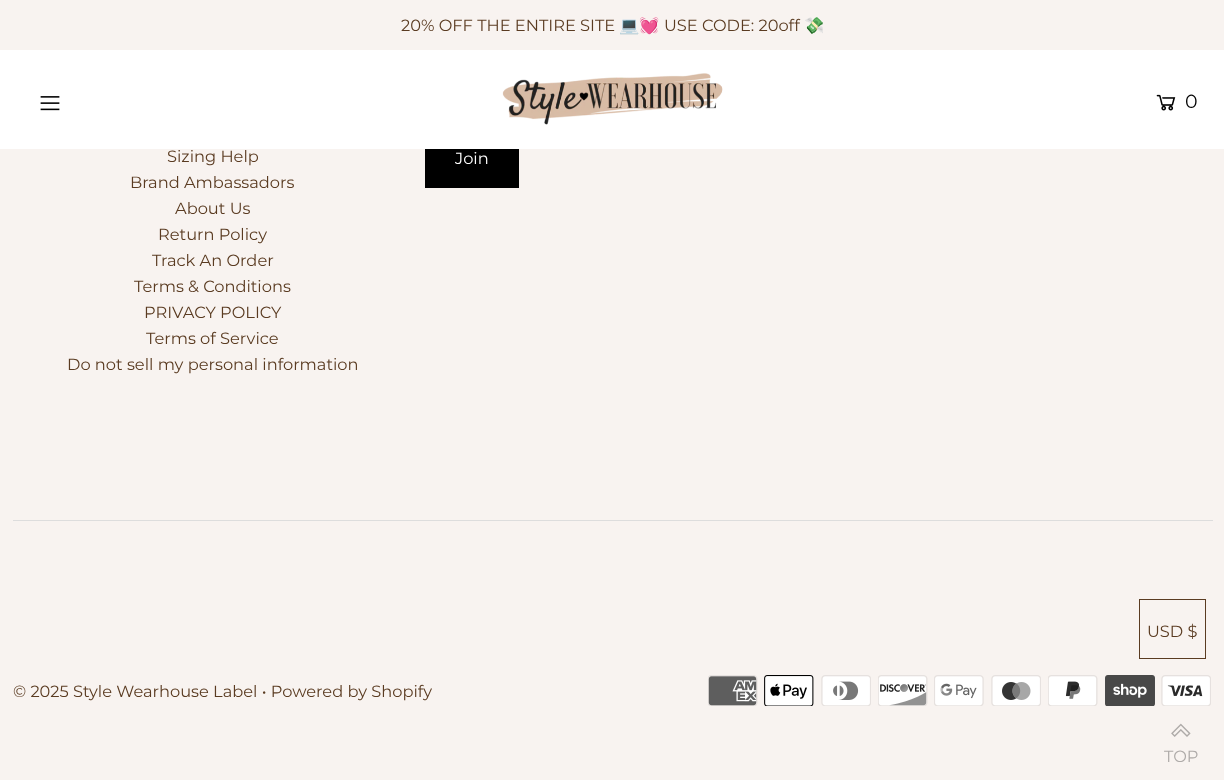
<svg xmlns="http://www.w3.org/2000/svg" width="1224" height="780">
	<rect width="100%" height="100%" fill="#F8F3F0" />
	<rect x="0" y="50" width="1224" height="99" fill="#FFFFFF" />
	<text x="401" y="31" font-family="Montserrat" font-size="16.25" fill="#5A3B21">20% OFF THE ENTIRE SITE</text>
	<text x="619" y="31" font-family="Noto Color Emoji" font-size="16.25" fill="#5A3B21">💻💓</text>
	<text x="664" y="31" font-family="Montserrat" font-size="16.25" fill="#5A3B21">USE CODE: 20off</text>
	<text x="804" y="31" font-family="Noto Color Emoji" font-size="16.25" fill="#5A3B21">💸</text>
	<image x="40" y="96" width="20" height="15" href="assets/img1.png" />
	<image x="502" y="73" width="221" height="52" href="assets/img2.png" />
	<image x="1156" y="94" width="20" height="17" href="assets/img3.png" />
	<text x="1185" y="108" font-family="Montserrat" font-size="19" fill="#000000">0</text>
	<g font-family="Montserrat" font-size="16.25" fill="#5A3B21">
		<text x="167" y="162">Sizing Help</text>
		<text x="130" y="188">Brand Ambassadors</text>
		<text x="175" y="214">About Us</text>
		<text x="158" y="240">Return Policy</text>
		<text x="152" y="266">Track An Order</text>
		<text x="134" y="292">Terms &amp; Conditions</text>
		<text x="144" y="318">PRIVACY POLICY</text>
		<text x="146" y="344">Terms of Service</text>
		<text x="67" y="370">Do not sell my personal information</text>
	</g>
	<rect x="425" y="149" width="94" height="39" fill="#000000" />
	<text x="455" y="164" font-family="Montserrat" font-size="16.25" fill="#FFFFFF">Join</text>
	<rect x="13" y="520" width="1200" height="1" fill="#DDDDDD" />
	<rect x="1139.5" y="599.5" width="66" height="59" fill="none" stroke="#5A3B21" />
	<text x="1147" y="637" font-family="Montserrat" font-size="16.25" fill="#5A3B21">USD $</text>
	<image x="708" y="675" width="50" height="31" href="assets/img4.png" />
	<image x="764" y="675" width="50" height="31" href="assets/img5.png" />
	<image x="821" y="675" width="50" height="31" href="assets/img6.png" />
	<image x="878" y="675" width="50" height="31" href="assets/img7.png" />
	<image x="934" y="675" width="50" height="31" href="assets/img8.png" />
	<image x="991" y="675" width="50" height="31" href="assets/img9.png" />
	<image x="1048" y="675" width="50" height="31" href="assets/img10.png" />
	<image x="1105" y="675" width="50" height="31" href="assets/img11.png" />
	<image x="1161" y="675" width="50" height="31" href="assets/img12.png" />
	<text x="13" y="697" font-family="Montserrat" font-size="16.25" fill="#5A3B21">© 2025 Style Wearhouse Label • Powered by Shopify</text>
	<image x="1171" y="723" width="20" height="14" href="assets/img13.png" />
	<text x="1164" y="762" font-family="Montserrat" font-size="16.25" fill="#AEAAA8">TOP</text>
</svg>
